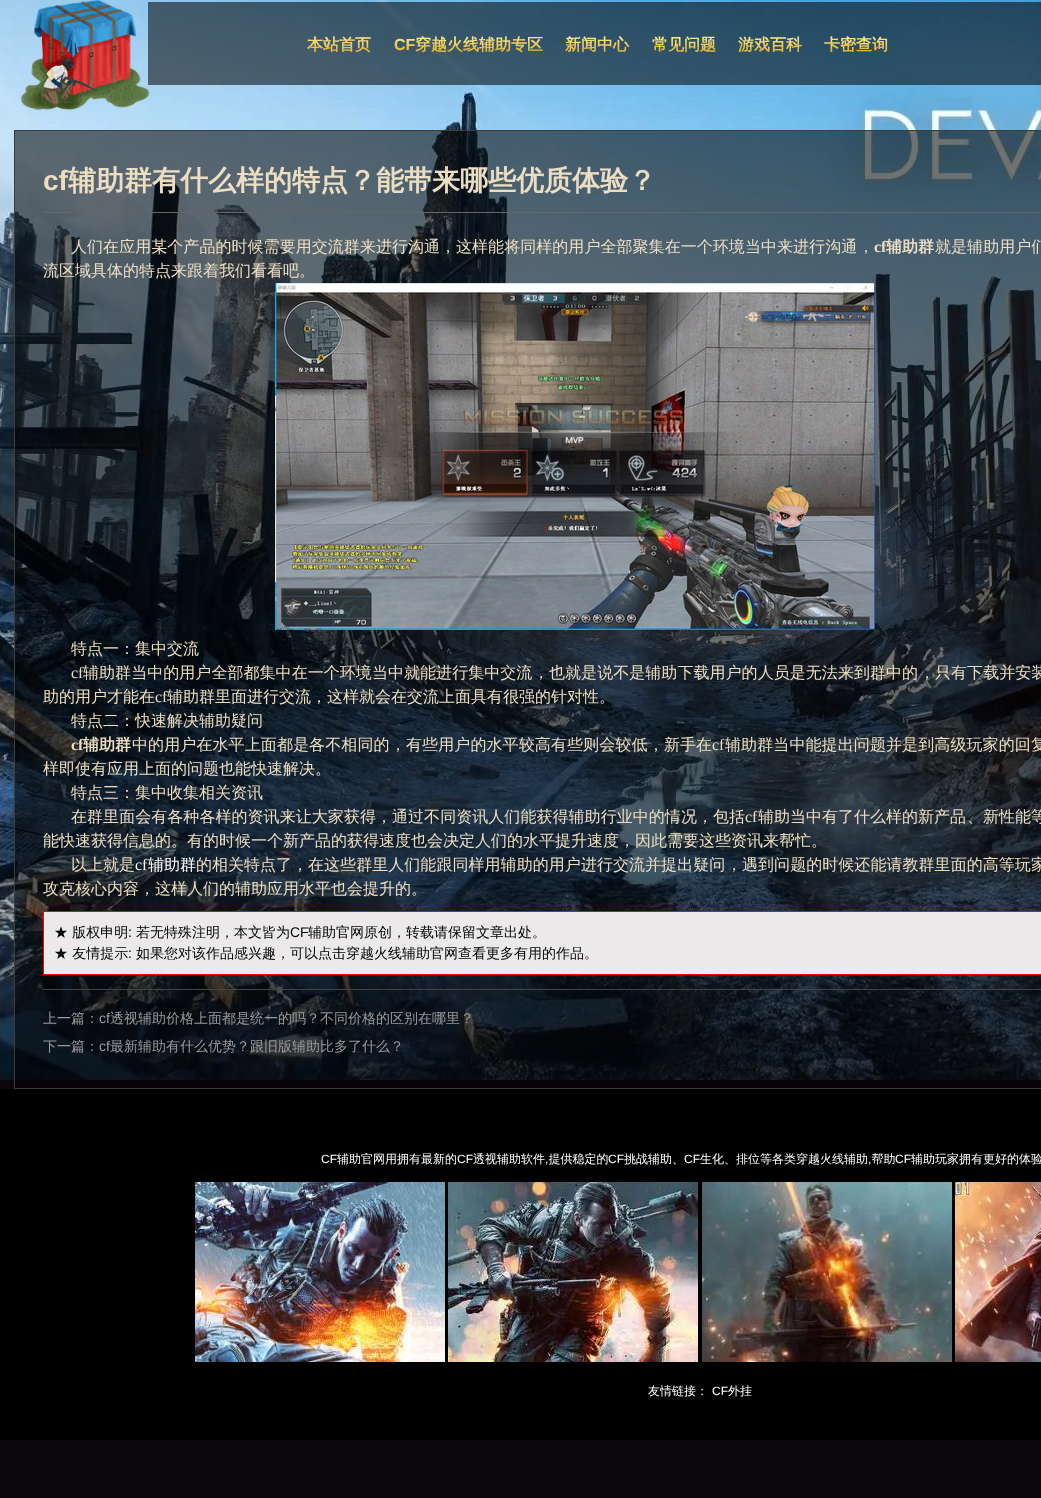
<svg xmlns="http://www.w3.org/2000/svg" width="1041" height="1498">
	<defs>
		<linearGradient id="g1" gradientUnits="userSpaceOnUse" x1="339" y1="53" x2="339" y2="36"><stop offset="0" stop-color="#E3AB27" /><stop offset="1" stop-color="#FDED95" /></linearGradient>
		<linearGradient id="g2" gradientUnits="userSpaceOnUse" x1="468" y1="53" x2="468" y2="36"><stop offset="0" stop-color="#E3AB27" /><stop offset="1" stop-color="#FDED95" /></linearGradient>
		<linearGradient id="g3" gradientUnits="userSpaceOnUse" x1="597" y1="53" x2="597" y2="36"><stop offset="0" stop-color="#E3AB27" /><stop offset="1" stop-color="#FDED95" /></linearGradient>
		<linearGradient id="g4" gradientUnits="userSpaceOnUse" x1="684" y1="53" x2="684" y2="36"><stop offset="0" stop-color="#E3AB27" /><stop offset="1" stop-color="#FDED95" /></linearGradient>
		<linearGradient id="g5" gradientUnits="userSpaceOnUse" x1="770" y1="53" x2="770" y2="36"><stop offset="0" stop-color="#E3AB27" /><stop offset="1" stop-color="#FDED95" /></linearGradient>
		<linearGradient id="g6" gradientUnits="userSpaceOnUse" x1="856" y1="53" x2="856" y2="36"><stop offset="0" stop-color="#E3AB27" /><stop offset="1" stop-color="#FDED95" /></linearGradient>
	</defs>
	<rect width="100%" height="100%" fill="#0C070D" />
	<image x="0" y="0" width="1041" height="1080" href="assets/img1.png" />
	<rect x="148" y="2" width="893" height="83" fill="#000000" fill-opacity="0.55" />
	<image x="20" y="0" width="130" height="111" href="assets/img2.png" />
	<text x="307" y="50" font-family="WenQuanYi Zen Hei" font-size="16" font-weight="700" fill="url(#g1)">本站首页</text>
	<text x="394" y="50" font-family="Liberation Sans" font-size="16" font-weight="700" fill="url(#g2)">CF</text>
	<text x="415" y="50" font-family="WenQuanYi Zen Hei" font-size="16" font-weight="700" fill="url(#g2)">穿越火线辅助专区</text>
	<text x="565" y="50" font-family="WenQuanYi Zen Hei" font-size="16" font-weight="700" fill="url(#g3)">新闻中心</text>
	<text x="652" y="50" font-family="WenQuanYi Zen Hei" font-size="16" font-weight="700" fill="url(#g4)">常见问题</text>
	<text x="738" y="50" font-family="WenQuanYi Zen Hei" font-size="16" font-weight="700" fill="url(#g5)">游戏百科</text>
	<text x="824" y="50" font-family="WenQuanYi Zen Hei" font-size="16" font-weight="700" fill="url(#g6)">卡密查询</text>
	<rect x="14.5" y="130.5" width="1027" height="958" fill="#000000" fill-opacity="0.55" stroke="#3D3D3C" />
	<rect x="43" y="212" width="998" height="1" fill="#666666" />
	<text x="43" y="190" font-family="Liberation Sans" font-size="28" font-weight="700" fill="#EBDEC2">cf</text>
	<text x="68" y="190" font-family="WenQuanYi Zen Hei" font-size="28" font-weight="700" fill="#EBDEC2">辅助群有什么样的特点？能带来哪些优质体验？</text>
	<text x="71" y="252" font-family="WenQuanYi Zen Hei" font-size="16" font-weight="500" letter-spacing="0.05" fill="#EBDEC2">人们在应用某个产品的时候需要用交流群来进行沟通</text>
	<text x="440" y="252" font-family="WenQuanYi Zen Hei" font-size="16" font-weight="500" fill="#EBDEC2">，</text>
	<text x="456" y="252" font-family="WenQuanYi Zen Hei" font-size="16" font-weight="500" letter-spacing="0.05" fill="#EBDEC2">这样能将同样的用户全部聚集在一个环境当中来进行沟通</text>
	<text x="858" y="252" font-family="WenQuanYi Zen Hei" font-size="16" font-weight="500" fill="#EBDEC2">，</text>
	<text x="874" y="252" font-family="Liberation Serif" font-size="16" font-weight="700" fill="#EBDEC2">cf</text>
	<text x="886" y="252" font-family="WenQuanYi Zen Hei" font-size="16" font-weight="700" fill="#EBDEC2">辅助群</text>
	<text x="935" y="252" font-family="WenQuanYi Zen Hei" font-size="16" font-weight="500" letter-spacing="0.05" fill="#EBDEC2">就是辅助用户们</text>
	<text x="43" y="276" font-family="WenQuanYi Zen Hei" font-size="16" font-weight="500" fill="#EBDEC2">流区域具体的特点来跟着我们看看吧。</text>
	<image x="275" y="283" width="600" height="347" href="assets/img3.png" />
	<text x="71" y="654" font-family="WenQuanYi Zen Hei" font-size="16" font-weight="500" fill="#EBDEC2">特点一：集中交流</text>
	<text x="71" y="678" font-family="Liberation Serif" font-size="16" fill="#EBDEC2">cf</text>
	<text x="83" y="678" font-family="WenQuanYi Zen Hei" font-size="16" font-weight="500" letter-spacing="0.05" fill="#EBDEC2">辅助群当中的用户全部都集中在一个环境当中就能进行集中交流</text>
	<text x="533" y="678" font-family="WenQuanYi Zen Hei" font-size="16" font-weight="500" fill="#EBDEC2">，</text>
	<text x="549" y="678" font-family="WenQuanYi Zen Hei" font-size="16" font-weight="500" letter-spacing="0.05" fill="#EBDEC2">也就是说不是辅助下载用户的人员是无法来到群中的</text>
	<text x="919" y="678" font-family="WenQuanYi Zen Hei" font-size="16" font-weight="500" fill="#EBDEC2">，</text>
	<text x="935" y="678" font-family="WenQuanYi Zen Hei" font-size="16" font-weight="500" letter-spacing="0.05" fill="#EBDEC2">只有下载并安装</text>
	<text x="43" y="702" font-family="WenQuanYi Zen Hei" font-size="16" font-weight="500" fill="#EBDEC2">助的用户才能在</text>
	<text x="155" y="702" font-family="Liberation Serif" font-size="16" fill="#EBDEC2">cf</text>
	<g font-family="WenQuanYi Zen Hei" font-size="16" font-weight="500" fill="#EBDEC2">
		<text x="167" y="702">辅助群里面进行交流，这样就会在交流上面具有很强的针对性。</text>
		<text x="71" y="726">特点二：快速解决辅助疑问</text>
	</g>
	<text x="71" y="750" font-family="Liberation Serif" font-size="16" font-weight="700" fill="#EBDEC2">cf</text>
	<text x="83" y="750" font-family="WenQuanYi Zen Hei" font-size="16" font-weight="700" fill="#EBDEC2">辅助群</text>
	<text x="132" y="750" font-family="WenQuanYi Zen Hei" font-size="16" font-weight="500" letter-spacing="0.1" fill="#EBDEC2">中的用户在水平上面都是各不相同的</text>
	<text x="390" y="750" font-family="WenQuanYi Zen Hei" font-size="16" font-weight="500" fill="#EBDEC2">，</text>
	<text x="406" y="750" font-family="WenQuanYi Zen Hei" font-size="16" font-weight="500" letter-spacing="0.1" fill="#EBDEC2">有些用户的水平较高有些则会较低</text>
	<g font-family="WenQuanYi Zen Hei" font-size="16" font-weight="500" fill="#EBDEC2">
		<text x="648" y="750">，</text>
		<text x="664" y="750">新手在</text>
	</g>
	<text x="712" y="750" font-family="Liberation Serif" font-size="16" fill="#EBDEC2">cf</text>
	<text x="725" y="750" font-family="WenQuanYi Zen Hei" font-size="16" font-weight="500" letter-spacing="0.1" fill="#EBDEC2">辅助群当中能提出问题并是到高级玩家的回复</text>
	<g font-family="WenQuanYi Zen Hei" font-size="16" font-weight="500" fill="#EBDEC2">
		<text x="43" y="774">样即使有应用上面的问题也能快速解决。</text>
		<text x="71" y="798">特点三：集中收集相关资讯</text>
	</g>
	<text x="71" y="822" font-family="WenQuanYi Zen Hei" font-size="16" font-weight="500" letter-spacing="0.05" fill="#EBDEC2">在群里面会有各种各样的资讯来让大家获得</text>
	<text x="376" y="822" font-family="WenQuanYi Zen Hei" font-size="16" font-weight="500" fill="#EBDEC2">，</text>
	<text x="392" y="822" font-family="WenQuanYi Zen Hei" font-size="16" font-weight="500" letter-spacing="0.05" fill="#EBDEC2">通过不同资讯人们能获得辅助行业中的情况</text>
	<text x="697" y="822" font-family="WenQuanYi Zen Hei" font-size="16" font-weight="500" fill="#EBDEC2">，包括</text>
	<text x="745" y="822" font-family="Liberation Serif" font-size="16" fill="#EBDEC2">cf</text>
	<g font-family="WenQuanYi Zen Hei" font-size="16" font-weight="500" fill="#EBDEC2">
		<text x="758" y="822">辅助当中有了什么样的新产品</text>
		<text x="967" y="822">、新性能等</text>
		<text x="43" y="846">能快速获得信息的。有的时候一个新产品的获得速度也会决定人们的水平提升速度，因此需要这些资讯来帮忙。</text>
		<text x="71" y="870">以上就是</text>
	</g>
	<text x="135" y="870" font-family="Liberation Serif" font-size="16" fill="#FFFFFF">cf</text>
	<text x="148" y="870" font-family="WenQuanYi Zen Hei" font-size="16" font-weight="500" fill="#FFFFFF">辅助群</text>
	<g font-family="WenQuanYi Zen Hei" font-size="16" font-weight="500" fill="#EBDEC2">
		<text x="196" y="870">的相关特点了</text>
		<text x="292" y="870">，</text>
	</g>
	<text x="308" y="870" font-family="WenQuanYi Zen Hei" font-size="16" font-weight="500" letter-spacing="0.05" fill="#EBDEC2">在这些群里人们能跟同样用辅助的用户进行交流并提出疑问</text>
	<text x="726" y="870" font-family="WenQuanYi Zen Hei" font-size="16" font-weight="500" fill="#EBDEC2">，</text>
	<text x="742" y="870" font-family="WenQuanYi Zen Hei" font-size="16" font-weight="500" letter-spacing="0.05" fill="#EBDEC2">遇到问题的时候还能请教群里面的高等玩家</text>
	<text x="43" y="894" font-family="WenQuanYi Zen Hei" font-size="16" font-weight="500" fill="#EBDEC2">攻克核心内容，这样人们的辅助应用水平也会提升的。</text>
	<rect x="43.5" y="911.5" width="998" height="63" fill="#EBE9E9" stroke="#FF0000" />
	<text x="54" y="937" font-family="WenQuanYi Zen Hei" font-size="14" font-weight="500" fill="#000000">★ 版权申明</text>
	<text x="128" y="937" font-family="Liberation Sans" font-size="14" fill="#000000">:</text>
	<text x="136" y="937" font-family="WenQuanYi Zen Hei" font-size="14" font-weight="500" fill="#000000">若无特殊注明，本文皆为</text>
	<text x="290" y="937" font-family="Liberation Sans" font-size="14" fill="#000000">CF</text>
	<g font-family="WenQuanYi Zen Hei" font-size="14" font-weight="500" fill="#000000">
		<text x="308" y="937">辅助官网原创，转载请保留文章出处。</text>
		<text x="54" y="958">★ 友情提示</text>
	</g>
	<text x="128" y="958" font-family="Liberation Sans" font-size="14" fill="#000000">:</text>
	<text x="136" y="958" font-family="WenQuanYi Zen Hei" font-size="14" font-weight="500" fill="#000000">如果您对该作品感兴趣，可以点击穿越火线辅助官网查看更多有用的作品。</text>
	<rect x="43" y="989" width="998" height="1" fill="#444444" />
	<text x="43" y="1023" font-family="WenQuanYi Zen Hei" font-size="14" font-weight="500" fill="#999999">上一篇：</text>
	<text x="99" y="1023" font-family="Liberation Sans" font-size="14" fill="#999999">cf</text>
	<g font-family="WenQuanYi Zen Hei" font-size="14" font-weight="500" fill="#999999">
		<text x="110" y="1023">透视辅助价格上面都是统一的吗？不同价格的区别在哪里？</text>
		<text x="43" y="1051">下一篇：</text>
	</g>
	<text x="99" y="1051" font-family="Liberation Sans" font-size="14" fill="#999999">cf</text>
	<text x="110" y="1051" font-family="WenQuanYi Zen Hei" font-size="14" font-weight="500" fill="#999999">最新辅助有什么优势？跟旧版辅助比多了什么？</text>
	<rect x="0" y="1089" width="1041" height="351" fill="#000000" />
	<text x="321" y="1163" font-family="Liberation Sans" font-size="12" fill="#FFFFFF">CF</text>
	<text x="337" y="1163" font-family="WenQuanYi Zen Hei" font-size="12" font-weight="500" fill="#FFFFFF">辅助官网用拥有最新的</text>
	<text x="457" y="1163" font-family="Liberation Sans" font-size="12" fill="#FFFFFF">CF</text>
	<text x="473" y="1163" font-family="WenQuanYi Zen Hei" font-size="12" font-weight="500" fill="#FFFFFF">透视辅助软件 提供稳定的</text>
	<text x="608" y="1163" font-family="Liberation Sans" font-size="12" fill="#FFFFFF">CF</text>
	<text x="624" y="1163" font-family="WenQuanYi Zen Hei" font-size="12" font-weight="500" fill="#FFFFFF">挑战辅助、</text>
	<text x="684" y="1163" font-family="Liberation Sans" font-size="12" fill="#FFFFFF">CF</text>
	<text x="700" y="1163" font-family="WenQuanYi Zen Hei" font-size="12" font-weight="500" fill="#FFFFFF">生化、排位等各类穿越火线辅助 帮助</text>
	<text x="895" y="1163" font-family="Liberation Sans" font-size="12" fill="#FFFFFF">CF</text>
	<text x="911" y="1163" font-family="WenQuanYi Zen Hei" font-size="12" font-weight="500" fill="#FFFFFF">辅助玩家拥有更好的体验</text>
	<g font-family="Liberation Sans" font-size="12" fill="#FFFFFF">
		<text x="545" y="1163">,</text>
		<text x="868" y="1163">,</text>
	</g>
	<image x="195" y="1182" width="250" height="180" href="assets/img4.png" />
	<image x="448" y="1182" width="250" height="180" href="assets/img5.png" />
	<image x="702" y="1182" width="250" height="180" href="assets/img6.png" />
	<image x="955" y="1182" width="86" height="180" href="assets/img7.png" />
	<text x="648" y="1395" font-family="WenQuanYi Zen Hei" font-size="12" font-weight="500" fill="#FFFFFF">友情链接：</text>
	<text x="712" y="1395" font-family="Liberation Sans" font-size="12" fill="#FFFFFF">CF</text>
	<text x="728" y="1395" font-family="WenQuanYi Zen Hei" font-size="12" font-weight="500" fill="#FFFFFF">外挂</text>
</svg>
